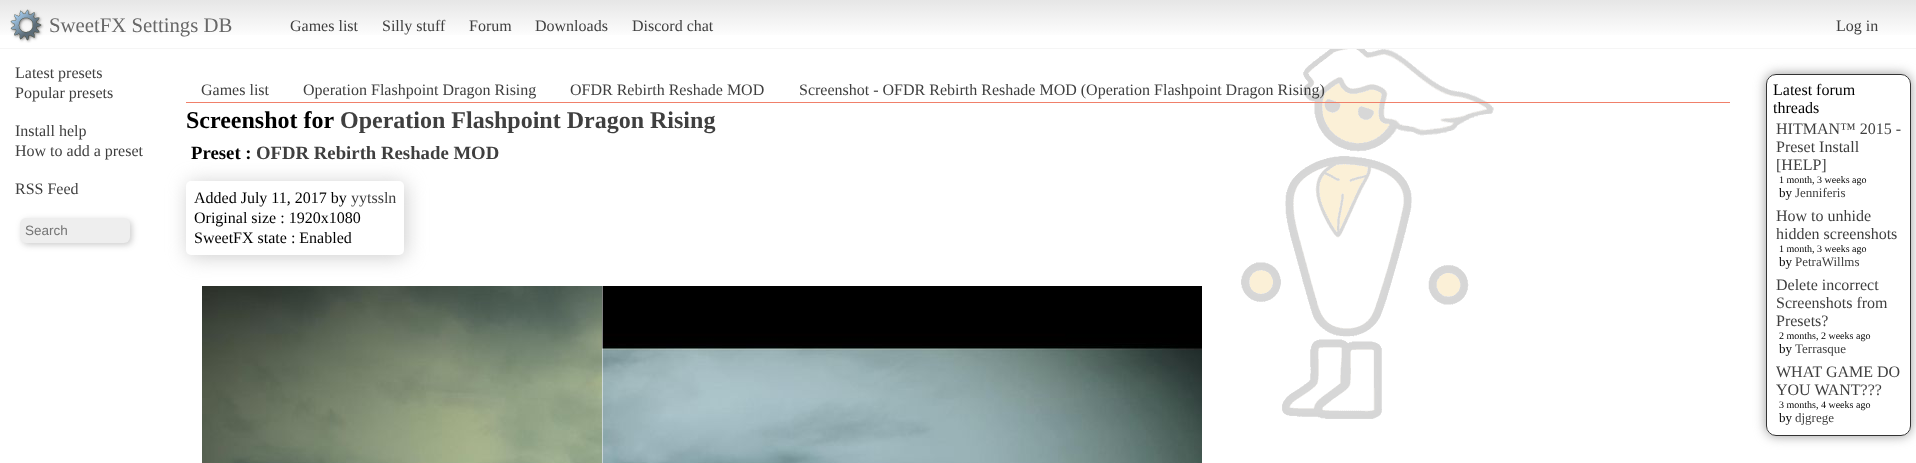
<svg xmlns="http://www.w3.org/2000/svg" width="1916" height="463">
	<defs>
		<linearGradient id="g1" gradientUnits="userSpaceOnUse" x1="958" y1="0" x2="958" y2="48"><stop offset="0" stop-color="#E6E6E6" /><stop offset="0.8" stop-color="#FFFFFF" /></linearGradient>
		<clipPath id="clip1"><path d="M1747 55H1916V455H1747ZM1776 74H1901C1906.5 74 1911 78.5 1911 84V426C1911 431.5 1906.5 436 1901 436H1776C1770.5 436 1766 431.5 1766 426V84C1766 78.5 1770.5 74 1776 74Z" clip-rule="evenodd" /></clipPath>
	</defs>
	<rect width="100%" height="100%" fill="#FFFFFF" />
	<image x="1241" y="49" width="253" height="370" href="assets/img1.png" />
	<rect x="0" y="0" width="1916" height="35" fill="url(#g1)" />
	<rect x="0" y="48" width="1916" height="1" fill="#F5F5F5" />
	<image x="10" y="9" width="34" height="34" href="assets/img2.png" />
	<text x="49" y="32" font-family="Liberation Serif" font-size="20.75" fill="#686868">SweetFX Settings DB</text>
	<g font-family="Liberation Serif" font-size="16" fill="#3F3F3F">
		<text x="290" y="31">Games list</text>
		<text x="382" y="31">Silly stuff</text>
		<text x="469" y="31">Forum</text>
		<text x="535" y="31">Downloads</text>
		<text x="632" y="31">Discord chat</text>
		<text x="1836" y="31">Log in</text>
		<text x="15" y="78">Latest presets</text>
		<text x="15" y="98">Popular presets</text>
		<text x="15" y="136">Install help</text>
		<text x="15" y="156">How to add a preset</text>
		<text x="15" y="194">RSS Feed</text>
	</g>
	<rect x="22" y="220" width="110" height="25" rx="6" fill="#323232" fill-opacity="0.25" filter="blur(3px)" />
	<rect x="20" y="218" width="110" height="25" rx="6" fill="#EEEEEE" />
	<text x="25" y="235" font-family="Liberation Sans" font-size="13.5" fill="#757575">Search</text>
	<rect x="186" y="102" width="1544" height="1" fill="#F0806A" />
	<g font-family="Liberation Serif" font-size="16" fill="#3F3F3F">
		<text x="201" y="95">Games list</text>
		<text x="303" y="95">Operation Flashpoint Dragon Rising</text>
		<text x="570" y="95">OFDR Rebirth Reshade MOD</text>
		<text x="799" y="95">Screenshot - OFDR Rebirth Reshade MOD (Operation Flashpoint Dragon Rising)</text>
	</g>
	<text x="186" y="128" font-family="Liberation Serif" font-size="24" font-weight="700" fill="#000000">Screenshot for</text>
	<text x="340" y="128" font-family="Liberation Serif" font-size="24" font-weight="700" fill="#3F3F3F">Operation Flashpoint Dragon Rising</text>
	<text x="191" y="159" font-family="Liberation Serif" font-size="18.75" font-weight="700" fill="#000000">Preset :</text>
	<text x="256" y="159" font-family="Liberation Serif" font-size="18.75" font-weight="700" fill="#3F3F3F">OFDR Rebirth Reshade MOD</text>
	<rect x="188" y="183" width="218" height="74" rx="5" fill="#B6B6B6" fill-opacity="0.68" filter="blur(10px)" />
	<rect x="186" y="181" width="218" height="74" rx="5" fill="#FFFFFF" />
	<text x="194" y="203" font-family="Liberation Serif" font-size="16" fill="#000000">Added July 11, 2017 by</text>
	<text x="351" y="203" font-family="Liberation Serif" font-size="16" fill="#3F3F3F">yytssln</text>
	<g font-family="Liberation Serif" font-size="16" fill="#000000">
		<text x="194" y="223">Original size : 1920x1080</text>
		<text x="194" y="243">SweetFX state : Enabled</text>
	</g>
	<image x="602" y="286" width="600" height="177" href="assets/img4.png" />
	<rect x="602" y="286" width="1" height="177" fill="#FFFFFF" fill-opacity="0.5" />
	<image x="202" y="286" width="400" height="177" href="assets/img3.png" />
	<g clip-path="url(#clip1)">
		<rect x="1766" y="74" width="145" height="362" rx="10" fill="#999999" filter="blur(6px)" />
	</g>
	<rect x="1766.5" y="74.5" width="144" height="361" rx="9.5" fill="none" stroke="#333333" />
	<g font-family="Liberation Serif" font-size="16" fill="#000000">
		<text x="1773" y="95">Latest forum</text>
		<text x="1773" y="113">threads</text>
	</g>
	<g font-family="Liberation Serif" font-size="16" fill="#3F3F3F">
		<text x="1776" y="134">HITMAN™ 2015 -</text>
		<text x="1776" y="152">Preset Install</text>
		<text x="1776" y="170">[HELP]</text>
	</g>
	<text x="1779" y="183" font-family="Liberation Serif" font-size="10" fill="#000000">1 month, 3 weeks ago</text>
	<text x="1779" y="197" font-family="Liberation Serif" font-size="13" fill="#000000">by</text>
	<text x="1795" y="197" font-family="Liberation Serif" font-size="13" fill="#3F3F3F">Jenniferis</text>
	<g font-family="Liberation Serif" font-size="16" fill="#3F3F3F">
		<text x="1776" y="221">How to unhide</text>
		<text x="1776" y="239">hidden screenshots</text>
	</g>
	<text x="1779" y="252" font-family="Liberation Serif" font-size="10" fill="#000000">1 month, 3 weeks ago</text>
	<text x="1779" y="266" font-family="Liberation Serif" font-size="13" fill="#000000">by</text>
	<text x="1795" y="266" font-family="Liberation Serif" font-size="13" fill="#3F3F3F">PetraWillms</text>
	<g font-family="Liberation Serif" font-size="16" fill="#3F3F3F">
		<text x="1776" y="290">Delete incorrect</text>
		<text x="1776" y="308">Screenshots from</text>
		<text x="1776" y="326">Presets?</text>
	</g>
	<text x="1779" y="339" font-family="Liberation Serif" font-size="10" fill="#000000">2 months, 2 weeks ago</text>
	<text x="1779" y="353" font-family="Liberation Serif" font-size="13" fill="#000000">by</text>
	<text x="1795" y="353" font-family="Liberation Serif" font-size="13" fill="#3F3F3F">Terrasque</text>
	<g font-family="Liberation Serif" font-size="16" fill="#3F3F3F">
		<text x="1776" y="377">WHAT GAME DO</text>
		<text x="1776" y="395">YOU WANT???</text>
	</g>
	<text x="1779" y="408" font-family="Liberation Serif" font-size="10" fill="#000000">3 months, 4 weeks ago</text>
	<text x="1779" y="422" font-family="Liberation Serif" font-size="13" fill="#000000">by</text>
	<text x="1795" y="422" font-family="Liberation Serif" font-size="13" fill="#3F3F3F">djgrege</text>
</svg>
